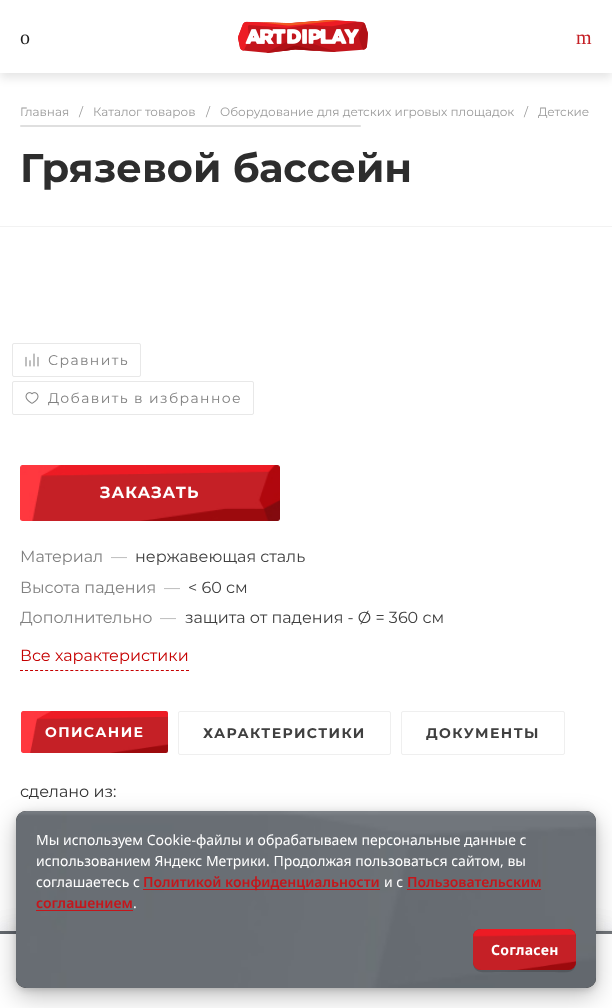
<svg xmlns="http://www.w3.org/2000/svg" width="612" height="1008">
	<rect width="100%" height="100%" fill="#FFFFFF" />
	<rect x="0" y="5" width="612" height="73" fill="#000000" fill-opacity="0.1" filter="blur(5px)" />
	<rect x="0" y="0" width="612" height="73" fill="#FFFFFF" />
	<text x="20" y="44" font-family="Liberation Serif" font-size="20" fill="#1D1D1D">o</text>
	<image x="238" y="20" width="130" height="33" href="assets/img1.png" />
	<text x="576" y="44" font-family="Liberation Serif" font-size="20" fill="#C52026">m</text>
	<g font-family="Montserrat" font-size="12" fill="#9A9A9A">
		<text x="20" y="116">Главная</text>
		<text x="79" y="116">/</text>
		<text x="93" y="116">Каталог товаров</text>
		<text x="206" y="116">/</text>
		<text x="220" y="116">Оборудование для детских игровых площадок</text>
		<text x="524" y="116">/</text>
		<text x="538" y="116">Детские</text>
	</g>
	<rect x="20" y="125" width="341" height="2" rx="1" fill="#DFDFDF" />
	<text x="20" y="182" font-family="Montserrat" font-size="40" font-weight="700" fill="#2D2D2D">Грязевой бассейн</text>
	<image x="0" y="931" width="612" height="3" href="assets/img6.png" />
	<rect x="0" y="930" width="612" height="74" fill="#1B1E25" fill-opacity="0.08" filter="blur(12px)" />
	<rect x="0" y="930" width="612" height="74" fill="#1B1E25" fill-opacity="0.08" filter="blur(12px)" />
	<rect x="542" y="934" width="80" height="60" rx="2" fill="#808080" filter="blur(2.5px)" />
	<rect x="0" y="934" width="612" height="74" fill="#FFFFFF" />
	<rect x="0" y="226" width="612" height="1" fill="#F2F2F2" />
	<rect x="12.5" y="343.5" width="128" height="33" rx="1.5" fill="none" stroke="#E8E8E8" />
	<image x="25" y="353" width="14" height="14" href="assets/img2.png" />
	<text x="48" y="365" font-family="Montserrat" font-size="14" letter-spacing="1.4" fill="#808080">Сравнить</text>
	<rect x="12.5" y="381.5" width="241" height="33" rx="1.5" fill="none" stroke="#E8E8E8" />
	<image x="25" y="392" width="14" height="12" href="assets/img3.png" />
	<text x="48" y="403" font-family="Montserrat" font-size="14" letter-spacing="1.4" fill="#808080">Добавить в избранное</text>
	<image x="20" y="465" width="260" height="56" href="assets/img4.png" />
	<text x="100" y="498" font-family="Montserrat" font-size="16" font-weight="700" letter-spacing="1" fill="#FFFFFF">ЗАКАЗАТЬ</text>
	<text x="20" y="562" font-family="Montserrat" font-size="16" fill="#808080">Материал</text>
	<text x="111" y="562" font-family="Montserrat" font-size="16" fill="#B0B0B0">—</text>
	<text x="135" y="562" font-family="Montserrat" font-size="16" fill="#404040">нержавеющая сталь</text>
	<text x="20" y="593" font-family="Montserrat" font-size="16" fill="#808080">Высота падения</text>
	<text x="164" y="593" font-family="Montserrat" font-size="16" fill="#B0B0B0">—</text>
	<text x="188" y="593" font-family="Montserrat" font-size="16" fill="#404040">&lt; 60 см</text>
	<text x="20" y="623" font-family="Montserrat" font-size="16" fill="#808080">Дополнительно</text>
	<text x="160" y="623" font-family="Montserrat" font-size="16" fill="#B0B0B0">—</text>
	<text x="185" y="623" font-family="Montserrat" font-size="16" fill="#404040">защита от падения - Ø = 360 см</text>
	<path d="M20 670.5H189" fill="none" stroke="#C50000" stroke-dasharray="3 2.03" />
	<text x="20" y="661" font-family="Montserrat" font-size="16" fill="#C50000">Все характеристики</text>
	<image x="21" y="711" width="147" height="42" href="assets/img5.png" />
	<text x="45" y="737" font-family="Montserrat" font-size="14" font-weight="700" letter-spacing="1.4" fill="#FFFFFF">ОПИСАНИЕ</text>
	<rect x="178.5" y="711.5" width="212" height="43" rx="1.5" fill="none" stroke="#EFEFEF" />
	<text x="203" y="738" font-family="Montserrat" font-size="14" font-weight="700" letter-spacing="1.4" fill="#404040">ХАРАКТЕРИСТИКИ</text>
	<rect x="401.5" y="711.5" width="163" height="43" rx="1.5" fill="none" stroke="#EFEFEF" />
	<text x="426" y="738" font-family="Montserrat" font-size="14" font-weight="700" letter-spacing="1.4" fill="#404040">ДОКУМЕНТЫ</text>
	<text x="20" y="797" font-family="Montserrat" font-size="16" fill="#333333">сделано из:</text>
	<rect x="16" y="813" width="580" height="177" rx="10" fill="#000000" fill-opacity="0.15" filter="blur(3px)" />
	<rect x="16" y="819" width="580" height="177" rx="10" fill="#000000" fill-opacity="0.25" filter="blur(12px)" />
	<rect x="16" y="811" width="580" height="177" rx="10" fill="#222222" />
	<image x="16" y="811" width="580" height="177" href="assets/img7.png" />
	<g font-family="Noto Sans" font-size="14" fill="#FFFFFF">
		<text x="36" y="845">Мы используем Cookie-файлы и обрабатываем персональные данные с</text>
		<text x="36" y="866">использованием Яндекс Метрики. Продолжая пользоваться сайтом, вы</text>
		<text x="36" y="887">соглашаетесь с</text>
	</g>
	<rect x="143" y="889" width="237" height="1" fill="#C5161B" />
	<text x="143" y="887" font-family="Noto Sans" font-size="14" font-weight="600" fill="#C5161B">Политикой конфиденциальности</text>
	<text x="384" y="887" font-family="Noto Sans" font-size="14" fill="#FFFFFF">и с</text>
	<text x="407" y="887" font-family="Noto Sans" font-size="14" font-weight="600" fill="#C5161B">Пользовательским</text>
	<rect x="407" y="889" width="134" height="1" fill="#C5161B" />
	<text x="36" y="908" font-family="Noto Sans" font-size="14" font-weight="600" fill="#C5161B">соглашением</text>
	<rect x="36" y="910" width="97" height="1" fill="#C5161B" />
	<text x="133" y="908" font-family="Noto Sans" font-size="14" fill="#FFFFFF">.</text>
	<path d="M473 962C473 975 485 972 496 972H554C564 972 576 975 576 962C576 966 572 970 568 970H481C477 970 473 966 473 962Z" fill="#000000" fill-opacity="0.15" />
	<rect x="473" y="929" width="103" height="41" rx="8" fill="#B60F15" />
	<image x="473" y="929" width="103" height="41" href="assets/img8.png" />
	<text x="491" y="955" font-family="Noto Sans" font-size="14" font-weight="700" letter-spacing="0.25" fill="#FFFFFF">Согласен</text>
</svg>
